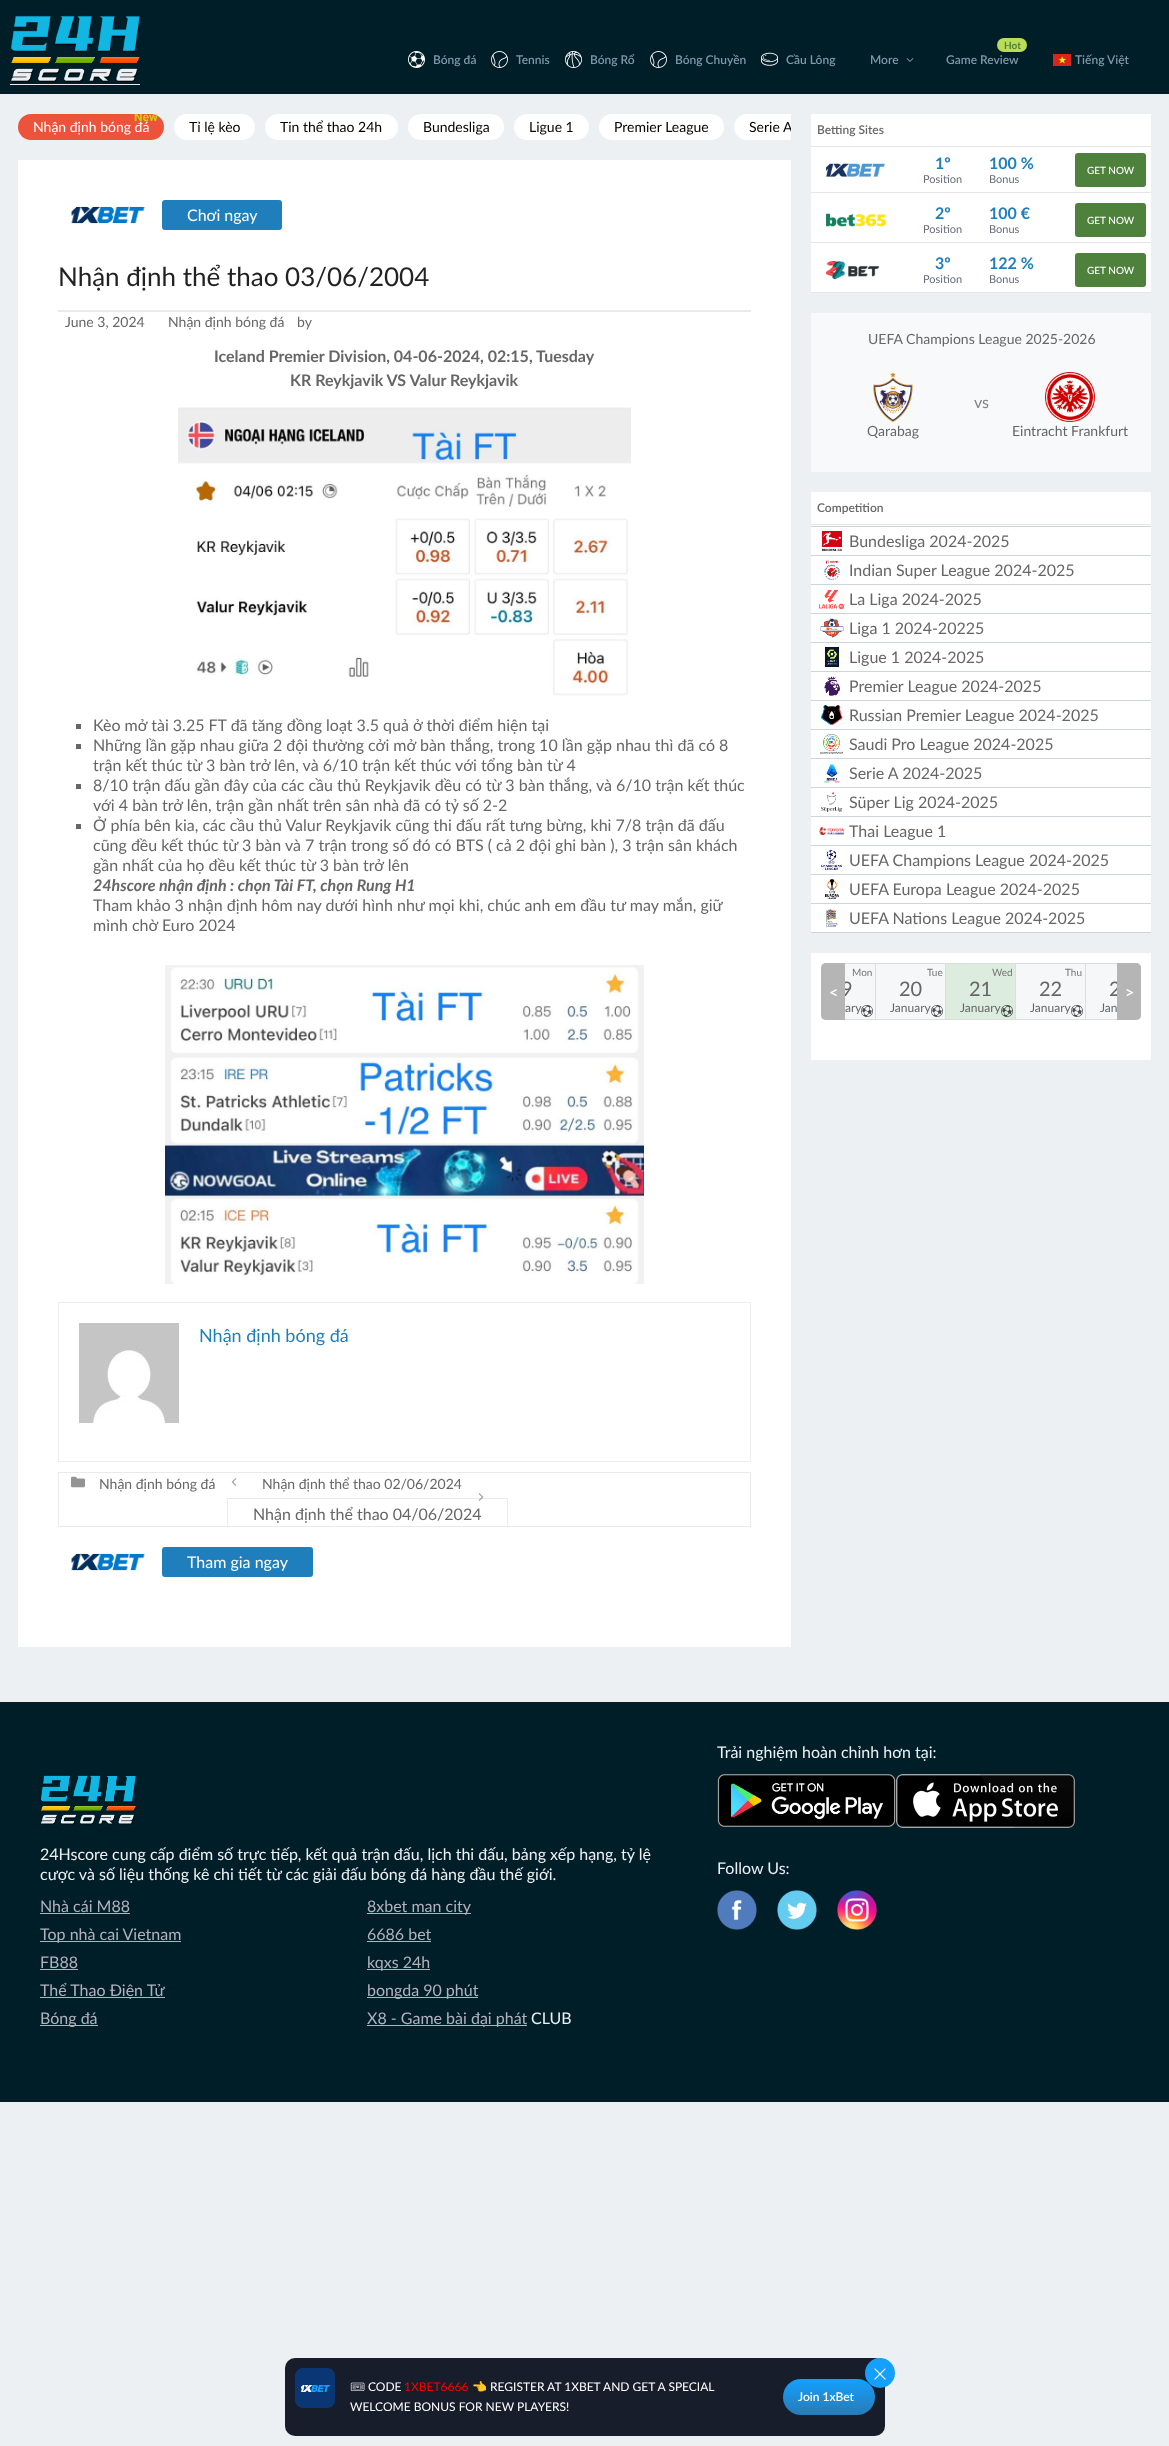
<svg xmlns="http://www.w3.org/2000/svg" width="1169" height="2446">
	<defs>
		<clipPath id="clip1"><rect x="18" y="114" width="773" height="26" /></clipPath>
		<clipPath id="clip2"><rect x="221" y="1473" width="529" height="53" /></clipPath>
		<clipPath id="clip3"><rect x="845" y="964" width="272" height="55" /></clipPath>
		<linearGradient id="g1" gradientUnits="userSpaceOnUse" x1="829" y1="2379" x2="829" y2="2415"><stop offset="0" stop-color="#14A0FF" /><stop offset="1" stop-color="#287BB4" /></linearGradient>
	</defs>
	<rect width="100%" height="100%" fill="#ECF0F3" />
	<rect x="0" y="0" width="1169" height="94" fill="#001E28" />
	<image x="11" y="15" width="129" height="68" href="assets/img1.png" />
	<rect x="10" y="84" width="130" height="1" fill="#EAEAEA" />
	<image x="408" y="51" width="17" height="17" href="assets/img2.png" />
	<text x="433" y="64" font-family="Lato" font-size="12" font-weight="600" fill="#7F97AB">Bóng đá</text>
	<image x="491" y="51" width="17" height="17" href="assets/img3.png" />
	<text x="516" y="64" font-family="Lato" font-size="12" font-weight="600" fill="#7F97AB">Tennis</text>
	<image x="565" y="51" width="17" height="17" href="assets/img4.png" />
	<text x="590" y="64" font-family="Lato" font-size="12" font-weight="600" fill="#7F97AB">Bóng Rổ</text>
	<image x="650" y="51" width="17" height="17" href="assets/img3.png" />
	<text x="675" y="64" font-family="Lato" font-size="12" font-weight="600" fill="#7F97AB">Bóng Chuyền</text>
	<image x="761" y="52" width="17" height="14" href="assets/img5.png" />
	<g font-family="Lato" font-size="12" font-weight="600" fill="#7F97AB">
		<text x="786" y="64">Cầu Lông</text>
		<text x="870" y="64">More</text>
	</g>
	<image x="906" y="58" width="8" height="4" href="assets/img6.png" />
	<rect x="997" y="38" width="30" height="14" rx="7" fill="#BADC58" />
	<text x="1004" y="49" font-family="Lato" font-size="10" font-weight="700" fill="#4F8237">Hot</text>
	<text x="946" y="64" font-family="Lato" font-size="12" font-weight="600" fill="#7F97AB">Game Review</text>
	<image x="1053" y="54" width="18" height="12" href="assets/img7.png" />
	<text x="1075" y="64" font-family="Lato" font-size="12" font-weight="600" fill="#7F97AB">Tiếng Việt</text>
	<rect x="18" y="114" width="146" height="26" rx="13" fill="#ED533A" />
	<g clip-path="url(#clip1)">
		<text x="134" y="121" font-family="Roboto" font-size="12" font-weight="700" fill="#D3CD13">New</text>
	</g>
	<text x="33" y="132" font-family="Lato" font-size="14" fill="#FFFFFF">Nhận định bóng đá</text>
	<rect x="174" y="114" width="81" height="26" rx="13" fill="#FFFFFF" />
	<text x="189" y="132" font-family="Lato" font-size="14" fill="#000000">Tỉ lệ kèo</text>
	<rect x="265" y="114" width="133" height="26" rx="13" fill="#FFFFFF" />
	<text x="280" y="132" font-family="Lato" font-size="14" fill="#000000">Tin thể thao 24h</text>
	<rect x="408" y="114" width="96" height="26" rx="13" fill="#FFFFFF" />
	<text x="423" y="132" font-family="Lato" font-size="14" fill="#000000">Bundesliga</text>
	<rect x="514" y="114" width="75" height="26" rx="13" fill="#FFFFFF" />
	<text x="529" y="132" font-family="Lato" font-size="14" fill="#000000">Ligue 1</text>
	<rect x="599" y="114" width="125" height="26" rx="13" fill="#FFFFFF" />
	<text x="614" y="132" font-family="Lato" font-size="14" fill="#000000">Premier League</text>
	<path d="M747 114H791V140H747C740 140 734 134 734 127C734 120 740 114 747 114Z" fill="#FFFFFF" />
	<g clip-path="url(#clip1)">
		<text x="749" y="132" font-family="Lato" font-size="14" fill="#000000">Serie A</text>
	</g>
	<rect x="18" y="160" width="773" height="1487" fill="#FFFFFF" />
	<image x="71" y="206" width="74" height="18" href="assets/img8.png" />
	<rect x="162" y="200" width="120" height="30" rx="3" fill="#1F7FBC" />
	<text x="187" y="221" font-family="Lato" font-size="16" fill="#FFFFFF">Chơi ngay</text>
	<text x="58" y="286" font-family="Lato" font-size="26" fill="#222222">Nhận định thể thao 03/06/2004</text>
	<rect x="58" y="310" width="693" height="2" fill="#EAEAEA" />
	<g font-family="Lato" font-size="14" fill="#666666">
		<text x="65" y="327">June 3, 2024</text>
		<text x="168" y="327">Nhận định bóng đá</text>
		<text x="297" y="327">by</text>
	</g>
	<g font-family="Lato" font-size="16" font-weight="700" fill="#666666">
		<text x="214" y="362">Iceland Premier Division, 04-06-2024, 02:15, Tuesday</text>
		<text x="290" y="386">KR Reykjavik VS Valur Reykjavik</text>
	</g>
	<image x="178" y="407" width="453" height="289" href="assets/img9.png" />
	<rect x="76" y="724" width="5" height="5" fill="#666666" />
	<text x="93" y="731" font-family="Lato" font-size="16" fill="#666666">Kèo mở tài 3.25 FT đã tăng đồng loạt 3.5 quả ở thời điểm hiện tại</text>
	<rect x="76" y="744" width="5" height="5" fill="#666666" />
	<g font-family="Lato" font-size="16" fill="#666666">
		<text x="93" y="751">Những lần gặp nhau giữa 2 đội thường cởi mở bàn thắng, trong 10 lần gặp nhau thì đã có 8</text>
		<text x="93" y="771">trận kết thúc từ 3 bàn trở lên, và 6/10 trận kết thúc với tổng bàn từ 4</text>
	</g>
	<rect x="76" y="784" width="5" height="5" fill="#666666" />
	<g font-family="Lato" font-size="16" fill="#666666">
		<text x="93" y="791">8/10 trận đấu gần đây của các cầu thủ Reykjavik đều có từ 3 bàn thắng, và 6/10 trận kết thúc</text>
		<text x="93" y="811">với 4 bàn trở lên, trận gần nhất trên sân nhà đã có tỷ số 2-2</text>
	</g>
	<rect x="76" y="824" width="5" height="5" fill="#666666" />
	<g font-family="Lato" font-size="16" fill="#666666">
		<text x="93" y="831">Ở phía bên kia, các cầu thủ Valur Reykjavik cũng thi đấu rất tưng bừng, khi 7/8 trận đã đấu</text>
		<text x="93" y="851">cũng đều kết thúc từ 3 bàn và 7 trận trong số đó có BTS ( cả 2 đội ghi bàn ), 3 trận sân khách</text>
		<text x="93" y="871">gần nhất của họ đều kết thúc từ 3 bàn trở lên</text>
	</g>
	<text x="93" y="891" font-family="Lato" font-size="16" font-weight="700" font-style="italic" fill="#666666">24hscore nhận định : chọn Tài FT, chọn Rung H1</text>
	<g font-family="Lato" font-size="16" fill="#666666">
		<text x="93" y="911">Tham khảo 3 nhận định hôm nay dưới hình như mọi khi, chúc anh em đầu tư may mắn, giữ</text>
		<text x="93" y="931">mình chờ Euro 2024</text>
	</g>
	<image x="165" y="965" width="479" height="319" href="assets/img10.png" />
	<rect x="58.5" y="1302.5" width="692" height="159" fill="none" stroke="#EEEEEE" />
	<image x="79" y="1323" width="100" height="100" href="assets/img11.png" />
	<text x="199" y="1342" font-family="Lato" font-size="18" fill="#1F7FBC">Nhận định bóng đá</text>
	<rect x="58.5" y="1472.5" width="692" height="54" fill="none" stroke="#EAEAEA" />
	<image x="71" y="1476" width="14" height="12" href="assets/img12.png" />
	<text x="99" y="1489" font-family="Lato" font-size="14" fill="#666666">Nhận định bóng đá</text>
	<image x="231" y="1478" width="6" height="8" href="assets/img13.png" />
	<text x="262" y="1489" font-family="Lato" font-size="14" fill="#666666">Nhận định thể thao 02/06/2024</text>
	<g clip-path="url(#clip2)">
		<rect x="227.5" y="1498.5" width="280" height="30" fill="none" stroke="#EAEAEA" />
	</g>
	<image x="478" y="1493" width="6" height="8" href="assets/img14.png" />
	<text x="253" y="1520" font-family="Lato" font-size="16" fill="#666666">Nhận định thể thao 04/06/2024</text>
	<image x="71" y="1553" width="74" height="18" href="assets/img8.png" />
	<rect x="162" y="1547" width="151" height="30" rx="3" fill="#1F7FBC" />
	<text x="187" y="1568" font-family="Lato" font-size="16" fill="#FFFFFF">Tham gia ngay</text>
	<rect x="811" y="114" width="340" height="178" fill="#FFFFFF" />
	<rect x="811" y="146" width="340" height="1" fill="#E5E6E9" />
	<text x="817" y="134" font-family="Lato" font-size="12" font-weight="600" fill="#666666">Betting Sites</text>
	<rect x="811" y="192" width="340" height="1" fill="#E5E6E9" />
	<image x="826" y="163" width="59" height="14" href="assets/img15.png" />
	<text x="935" y="169" font-family="Lato" font-size="16" font-weight="700" fill="#1F7FBC">1º</text>
	<text x="923" y="183" font-family="Lato" font-size="11" fill="#676C7B">Position</text>
	<text x="989" y="169" font-family="Lato" font-size="16" font-weight="700" fill="#1F7FBC">100 %</text>
	<text x="989" y="183" font-family="Lato" font-size="11" fill="#676C7B">Bonus</text>
	<rect x="1075" y="153" width="71" height="34" rx="3" fill="#4E813B" />
	<text x="1087" y="174" font-family="Lato" font-size="10" font-weight="500" fill="#FFFFFF">GET NOW</text>
	<rect x="811" y="242" width="340" height="1" fill="#E5E6E9" />
	<image x="826" y="213" width="60" height="14" href="assets/img16.png" />
	<text x="935" y="219" font-family="Lato" font-size="16" font-weight="700" fill="#1F7FBC">2º</text>
	<text x="923" y="233" font-family="Lato" font-size="11" fill="#676C7B">Position</text>
	<text x="989" y="219" font-family="Lato" font-size="16" font-weight="700" fill="#1F7FBC">100 €</text>
	<text x="989" y="233" font-family="Lato" font-size="11" fill="#676C7B">Bonus</text>
	<rect x="1075" y="203" width="71" height="34" rx="3" fill="#4E813B" />
	<text x="1087" y="224" font-family="Lato" font-size="10" font-weight="500" fill="#FFFFFF">GET NOW</text>
	<rect x="811" y="292" width="340" height="1" fill="#E5E6E9" />
	<image x="826" y="261" width="54" height="19" href="assets/img17.png" />
	<text x="935" y="269" font-family="Lato" font-size="16" font-weight="700" fill="#1F7FBC">3º</text>
	<text x="923" y="283" font-family="Lato" font-size="11" fill="#676C7B">Position</text>
	<text x="989" y="269" font-family="Lato" font-size="16" font-weight="700" fill="#1F7FBC">122 %</text>
	<text x="989" y="283" font-family="Lato" font-size="11" fill="#676C7B">Bonus</text>
	<rect x="1075" y="253" width="71" height="34" rx="3" fill="#4E813B" />
	<text x="1087" y="274" font-family="Lato" font-size="10" font-weight="500" fill="#FFFFFF">GET NOW</text>
	<rect x="811" y="313" width="340" height="159" fill="#F8F9FA" />
	<text x="868" y="344" font-family="Lato" font-size="14" fill="#666666">UEFA Champions League 2025-2026</text>
	<text x="974" y="408" font-family="Lato" font-size="16" fill="#838384">vs</text>
	<image x="873" y="372" width="40" height="50" href="assets/img18.png" />
	<text x="867" y="436" font-family="Lato" font-size="14" fill="#666666">Qarabag</text>
	<image x="1045" y="372" width="50" height="50" href="assets/img19.png" />
	<text x="1012" y="436" font-family="Lato" font-size="14" fill="#666666">Eintracht Frankfurt</text>
	<rect x="811" y="492" width="340" height="440" fill="#FFFFFF" />
	<rect x="811" y="524" width="340" height="1" fill="#E5E6E9" />
	<text x="817" y="512" font-family="Lato" font-size="12" font-weight="600" fill="#666666">Competition</text>
	<rect x="811" y="526" width="340" height="1" fill="#CED4DA" />
	<rect x="811" y="555" width="340" height="1" fill="#CED4DA" />
	<image x="822" y="531" width="20" height="20" href="assets/img20.png" />
	<text x="849" y="547" font-family="Lato" font-size="16" fill="#666666">Bundesliga 2024-2025</text>
	<rect x="811" y="584" width="340" height="1" fill="#CED4DA" />
	<image x="824" y="560" width="16" height="20" href="assets/img21.png" />
	<text x="849" y="576" font-family="Lato" font-size="16" fill="#666666">Indian Super League 2024-2025</text>
	<rect x="811" y="613" width="340" height="1" fill="#CED4DA" />
	<image x="819" y="590" width="25" height="19" href="assets/img22.png" />
	<text x="849" y="605" font-family="Lato" font-size="16" fill="#666666">La Liga 2024-2025</text>
	<rect x="811" y="642" width="340" height="1" fill="#CED4DA" />
	<image x="820" y="618" width="24" height="20" href="assets/img23.png" />
	<text x="849" y="634" font-family="Lato" font-size="16" fill="#666666">Liga 1 2024-20225</text>
	<rect x="811" y="671" width="340" height="1" fill="#CED4DA" />
	<image x="825" y="647" width="14" height="20" href="assets/img24.png" />
	<text x="849" y="663" font-family="Lato" font-size="16" fill="#666666">Ligue 1 2024-2025</text>
	<rect x="811" y="700" width="340" height="1" fill="#CED4DA" />
	<image x="824" y="676" width="16" height="20" href="assets/img25.png" />
	<text x="849" y="692" font-family="Lato" font-size="16" fill="#666666">Premier League 2024-2025</text>
	<rect x="811" y="729" width="340" height="1" fill="#CED4DA" />
	<image x="821" y="705" width="22" height="20" href="assets/img26.png" />
	<text x="849" y="721" font-family="Lato" font-size="16" fill="#666666">Russian Premier League 2024-2025</text>
	<rect x="811" y="758" width="340" height="1" fill="#CED4DA" />
	<image x="820" y="734" width="23" height="20" href="assets/img27.png" />
	<text x="849" y="750" font-family="Lato" font-size="16" fill="#666666">Saudi Pro League 2024-2025</text>
	<rect x="811" y="787" width="340" height="1" fill="#CED4DA" />
	<image x="824" y="764" width="16" height="19" href="assets/img28.png" />
	<text x="849" y="779" font-family="Lato" font-size="16" fill="#666666">Serie A 2024-2025</text>
	<rect x="811" y="816" width="340" height="1" fill="#CED4DA" />
	<image x="821" y="792" width="21" height="20" href="assets/img29.png" />
	<text x="849" y="808" font-family="Lato" font-size="16" fill="#666666">Süper Lig 2024-2025</text>
	<rect x="811" y="845" width="340" height="1" fill="#CED4DA" />
	<image x="819" y="827" width="25" height="8" href="assets/img30.png" />
	<text x="849" y="837" font-family="Lato" font-size="16" fill="#666666">Thai League 1</text>
	<rect x="811" y="874" width="340" height="1" fill="#CED4DA" />
	<image x="821" y="850" width="21" height="20" href="assets/img31.png" />
	<text x="849" y="866" font-family="Lato" font-size="16" fill="#666666">UEFA Champions League 2024-2025</text>
	<rect x="811" y="903" width="340" height="1" fill="#CED4DA" />
	<image x="825" y="879" width="14" height="20" href="assets/img32.png" />
	<text x="849" y="895" font-family="Lato" font-size="16" fill="#666666">UEFA Europa League 2024-2025</text>
	<rect x="811" y="932" width="340" height="1" fill="#CED4DA" />
	<image x="826" y="909" width="12" height="18" href="assets/img33.png" />
	<text x="849" y="924" font-family="Lato" font-size="16" fill="#666666">UEFA Nations League 2024-2025</text>
	<rect x="811" y="953" width="340" height="107" fill="#FFFFFF" />
	<path d="M826 963H845V1020H826C823 1020 821 1018 821 1015V968C821 965 823 963 826 963Z" fill="#B5B5B5" />
	<text x="829" y="998" font-family="Lato" font-size="16" font-weight="600" fill="#FFFFFF">&lt;</text>
	<rect x="845" y="963" width="272" height="1" fill="#DDDDDD" />
	<rect x="845" y="1019" width="272" height="1" fill="#DDDDDD" />
	<rect x="845" y="964" width="30" height="55" fill="#F6F7F8" />
	<rect x="875" y="964" width="1" height="55" fill="#DDDDDD" />
	<text x="852" y="976" font-family="Lato" font-size="10" fill="#747575">Mon</text>
	<g clip-path="url(#clip3)">
		<text x="841" y="996" font-family="Lato" font-size="20" fill="#666666">9</text>
	</g>
	<text x="845" y="1012" font-family="Lato" font-size="12" fill="#666666">ary</text>
	<image x="861" y="1005" width="12" height="12" href="assets/img34.png" />
	<rect x="876" y="964" width="69" height="55" fill="#F6F7F8" />
	<rect x="945" y="964" width="1" height="55" fill="#DDDDDD" />
	<text x="927" y="976" font-family="Lato" font-size="10" fill="#747575">Tue</text>
	<text x="899" y="996" font-family="Lato" font-size="20" fill="#666666">20</text>
	<text x="890" y="1012" font-family="Lato" font-size="12" fill="#666666">January</text>
	<image x="931" y="1005" width="12" height="12" href="assets/img34.png" />
	<rect x="946" y="964" width="69" height="55" fill="#DCECDF" />
	<rect x="1015" y="964" width="1" height="55" fill="#DDDDDD" />
	<text x="992" y="976" font-family="Lato" font-size="10" fill="#747575">Wed</text>
	<text x="969" y="996" font-family="Lato" font-size="20" fill="#666666">21</text>
	<text x="960" y="1012" font-family="Lato" font-size="12" fill="#666666">January</text>
	<image x="1001" y="1005" width="12" height="12" href="assets/img35.png" />
	<rect x="1016" y="964" width="69" height="55" fill="#F6F7F8" />
	<rect x="1085" y="964" width="1" height="55" fill="#DDDDDD" />
	<text x="1065" y="976" font-family="Lato" font-size="10" fill="#747575">Thu</text>
	<text x="1039" y="996" font-family="Lato" font-size="20" fill="#666666">22</text>
	<text x="1030" y="1012" font-family="Lato" font-size="12" fill="#666666">January</text>
	<image x="1071" y="1005" width="12" height="12" href="assets/img34.png" />
	<rect x="1086" y="964" width="31" height="55" fill="#F6F7F8" />
	<g clip-path="url(#clip3)">
		<text x="1109" y="996" font-family="Lato" font-size="20" fill="#666666">2</text>
		<text x="1100" y="1012" font-family="Lato" font-size="12" fill="#666666">Jan</text>
	</g>
	<path d="M1117 963H1136C1139 963 1141 965 1141 968V1015C1141 1018 1139 1020 1136 1020H1117Z" fill="#B5B5B5" />
	<text x="1125" y="998" font-family="Lato" font-size="16" font-weight="600" fill="#FFFFFF">&gt;</text>
	<rect x="0" y="1702" width="1169" height="400" fill="#001E28" />
	<text x="717" y="1758" font-family="Lato" font-size="16" fill="#ECF0F3">Trải nghiệm hoàn chỉnh hơn tại:</text>
	<image x="717" y="1774" width="179" height="53" href="assets/img36.png" />
	<image x="896" y="1774" width="179" height="54" href="assets/img37.png" />
	<text x="717" y="1874" font-family="Lato" font-size="16" fill="#ECF0F3">Follow Us:</text>
	<image x="717" y="1890" width="40" height="40" href="assets/img38.png" />
	<image x="777" y="1890" width="40" height="40" href="assets/img39.png" />
	<image x="837" y="1890" width="40" height="40" href="assets/img40.png" />
	<image x="41" y="1775" width="95" height="50" href="assets/img41.png" />
	<g font-family="Lato" font-size="16" fill="#ECF0F3">
		<text x="40" y="1860">24Hscore cung cấp điểm số trực tiếp, kết quả trận đấu, lịch thi đấu, bảng xếp hạng, tỷ lệ</text>
		<text x="40" y="1880">cược và số liệu thống kê chi tiết từ các giải đấu bóng đá hàng đầu thế giới.</text>
	</g>
	<text x="40" y="1912" font-family="Lato" font-size="16" fill="#B2B2BE">Nhà cái M88</text>
	<rect x="40" y="1913" width="90" height="1" fill="#B2B2BE" />
	<rect x="367" y="1913" width="104" height="1" fill="#B2B2BE" />
	<text x="367" y="1912" font-family="Lato" font-size="16" fill="#B2B2BE">8xbet man city</text>
	<rect x="40" y="1941" width="141" height="1" fill="#B2B2BE" />
	<g font-family="Lato" font-size="16" fill="#B2B2BE">
		<text x="40" y="1940">Top nhà cai Vietnam</text>
		<text x="367" y="1940">6686 bet</text>
	</g>
	<rect x="367" y="1941" width="64" height="1" fill="#B2B2BE" />
	<text x="40" y="1968" font-family="Lato" font-size="16" fill="#B2B2BE">FB88</text>
	<rect x="40" y="1969" width="38" height="1" fill="#B2B2BE" />
	<rect x="367" y="1969" width="63" height="1" fill="#B2B2BE" />
	<text x="367" y="1968" font-family="Lato" font-size="16" fill="#B2B2BE">kqxs 24h</text>
	<rect x="40" y="1997" width="125" height="1" fill="#B2B2BE" />
	<text x="40" y="1996" font-family="Lato" font-size="16" fill="#B2B2BE">Thể Thao Điện Tử</text>
	<rect x="367" y="1997" width="111" height="1" fill="#B2B2BE" />
	<text x="367" y="1996" font-family="Lato" font-size="16" fill="#B2B2BE">bongda 90 phút</text>
	<rect x="40" y="2025" width="58" height="1" fill="#B2B2BE" />
	<text x="40" y="2024" font-family="Lato" font-size="16" fill="#B2B2BE">Bóng đá</text>
	<rect x="367" y="2025" width="160" height="1" fill="#B2B2BE" />
	<text x="367" y="2024" font-family="Lato" font-size="16" fill="#B2B2BE">X8 - Game bài đại phát</text>
	<text x="531" y="2024" font-family="Lato" font-size="16" fill="#ECF0F3">CLUB</text>
	<rect x="285" y="2358" width="600" height="78" rx="10" fill="#171D2A" />
	<rect x="783" y="2379" width="92" height="36" rx="18" fill="url(#g1)" />
	<circle cx="880" cy="2373" r="15" fill="#14A0FF" />
	<image x="874" y="2368" width="12" height="12" href="assets/img42.png" />
	<image x="295" y="2368" width="40" height="40" href="assets/img43.png" />
	<text x="350" y="2391" font-family="Noto Emoji" font-size="12" fill="#FFFFFF">🎟</text>
	<text x="368" y="2391" font-family="Lato" font-size="12" fill="#FFFFFF">CODE</text>
	<text x="404" y="2391" font-family="Lato" font-size="12" fill="#FF0000">1XBET6666</text>
	<text x="472" y="2391" font-family="Noto Color Emoji" font-size="12" fill="#FFFFFF">👈</text>
	<g font-family="Lato" font-size="12" fill="#FFFFFF">
		<text x="490" y="2391">REGISTER AT 1XBET AND GET A SPECIAL</text>
		<text x="350" y="2411">WELCOME BONUS FOR NEW PLAYERS!</text>
	</g>
	<text x="798" y="2401" font-family="Lato" font-size="12" font-weight="600" fill="#FFFFFF">Join 1xBet</text>
</svg>
